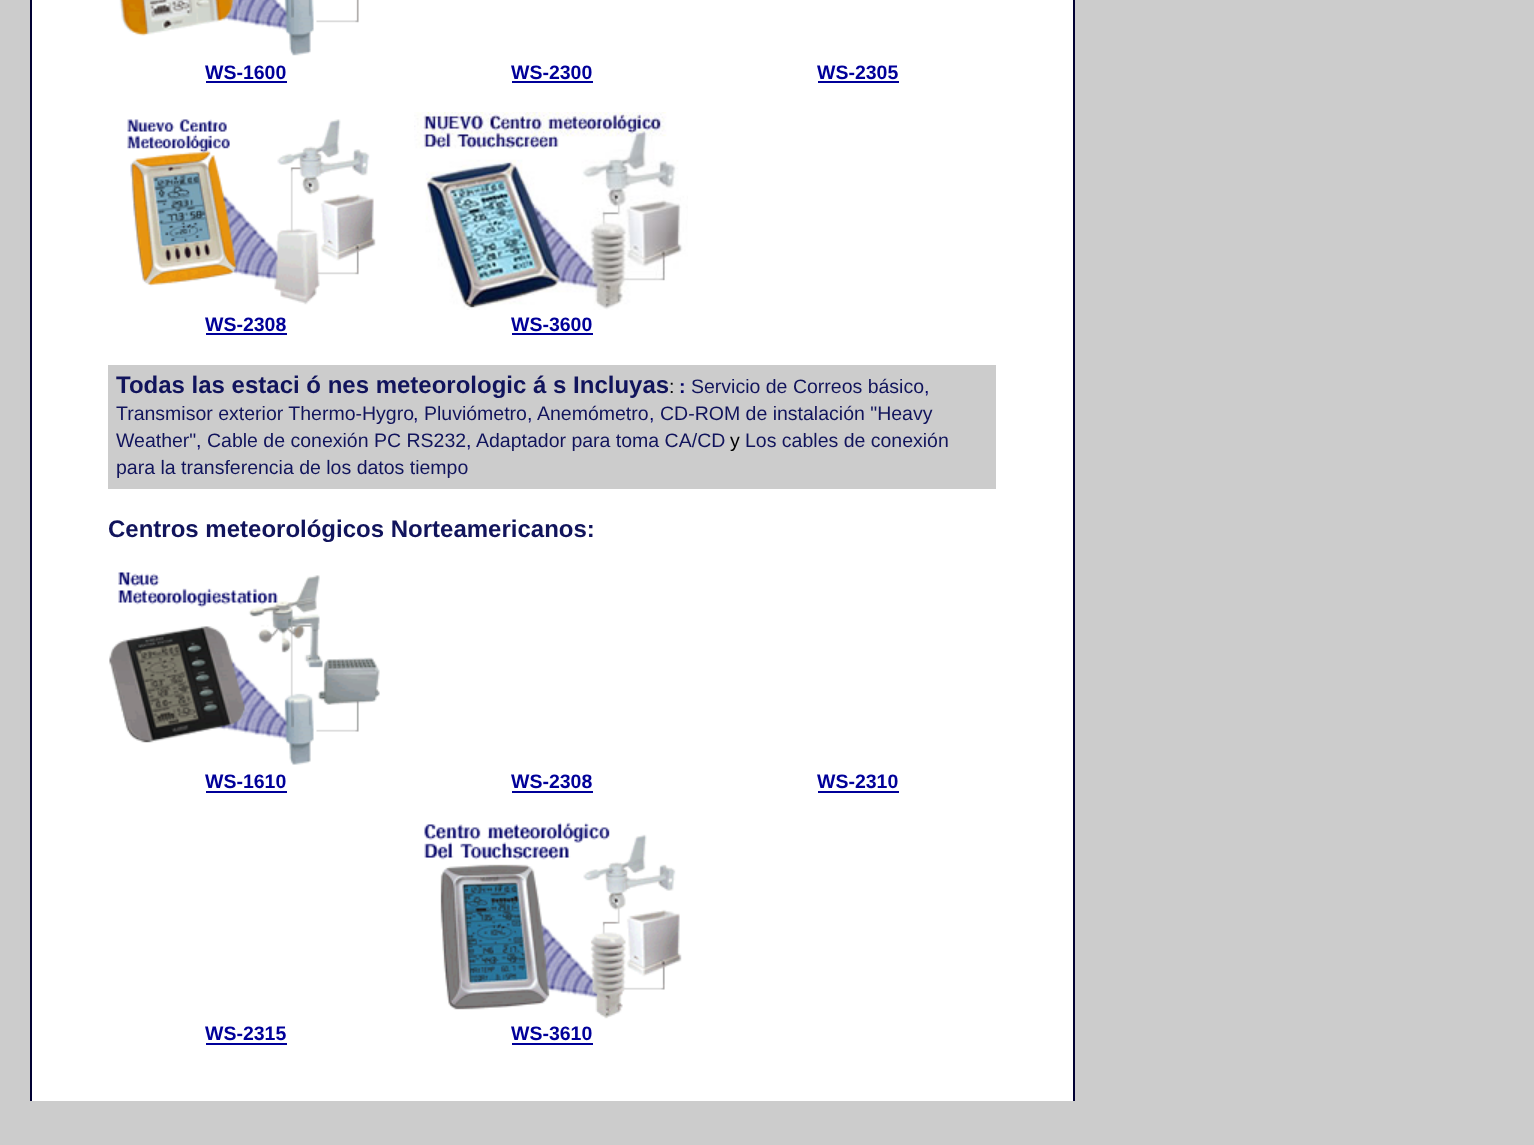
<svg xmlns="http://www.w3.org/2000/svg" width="1534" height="1145">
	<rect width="100%" height="100%" fill="#CCCCCC" />
	<rect x="30" y="0" width="2" height="1101" fill="#000033" />
	<rect x="32" y="0" width="1041" height="1101" fill="#FFFFFF" />
	<rect x="1073" y="0" width="2" height="1101" fill="#000033" />
	<image x="119" y="0" width="240" height="56" href="assets/img1.png" />
	<text x="205" y="79" font-family="Liberation Sans" font-size="19.5" font-weight="700" fill="#000099">WS-1600</text>
	<rect x="206" y="81" width="81" height="2" fill="#000099" />
	<text x="511" y="79" font-family="Liberation Sans" font-size="19.5" font-weight="700" fill="#000099">WS-2300</text>
	<rect x="512" y="81" width="81" height="2" fill="#000099" />
	<text x="817" y="79" font-family="Liberation Sans" font-size="19.5" font-weight="700" fill="#000099">WS-2305</text>
	<rect x="818" y="81" width="81" height="2" fill="#000099" />
	<image x="127" y="119" width="249" height="186" href="assets/img2.png" />
	<image x="414" y="112" width="274" height="198" href="assets/img3.png" />
	<text x="205" y="331" font-family="Liberation Sans" font-size="19.5" font-weight="700" fill="#000099">WS-2308</text>
	<rect x="206" y="333" width="81" height="2" fill="#000099" />
	<text x="511" y="331" font-family="Liberation Sans" font-size="19.5" font-weight="700" fill="#000099">WS-3600</text>
	<rect x="512" y="333" width="81" height="2" fill="#000099" />
	<rect x="108" y="365" width="888" height="124" fill="#CCCCCC" />
	<text x="116" y="393" font-family="Liberation Sans" font-size="24" font-weight="700" fill="#11145C">Todas las estaci ó nes meteorologic á s Incluyas</text>
	<text x="669" y="393" font-family="Liberation Sans" font-size="19.5" fill="#000000">:</text>
	<text x="679" y="393" font-family="Liberation Sans" font-size="19.5" font-weight="700" fill="#000066">:</text>
	<text x="691" y="393" font-family="Liberation Sans" font-size="19.5" fill="#11145C">Servicio de Correos básico</text>
	<text x="924" y="393" font-family="Liberation Sans" font-size="19.5" fill="#000066">,</text>
	<text x="116" y="420" font-family="Liberation Sans" font-size="19.5" fill="#11145C">Transmisor exterior Thermo-Hygro</text>
	<text x="413" y="420" font-family="Liberation Sans" font-size="19.5" fill="#000066">,</text>
	<text x="424" y="420" font-family="Liberation Sans" font-size="19.5" fill="#11145C">Pluviómetro</text>
	<text x="527" y="420" font-family="Liberation Sans" font-size="19.5" fill="#000066">,</text>
	<text x="537" y="420" font-family="Liberation Sans" font-size="19.5" fill="#11145C">Anemómetro</text>
	<text x="649" y="420" font-family="Liberation Sans" font-size="19.5" fill="#000066">,</text>
	<g font-family="Liberation Sans" font-size="19.5" fill="#11145C">
		<text x="660" y="420">CD-ROM de instalación "Heavy</text>
		<text x="116" y="447">Weather"</text>
	</g>
	<text x="196" y="447" font-family="Liberation Sans" font-size="19.5" fill="#000066">,</text>
	<text x="207" y="447" font-family="Liberation Sans" font-size="19.5" fill="#11145C">Cable de conexión PC RS232</text>
	<text x="466" y="447" font-family="Liberation Sans" font-size="19.5" fill="#000066">,</text>
	<text x="476" y="447" font-family="Liberation Sans" font-size="19.5" fill="#11145C">Adaptador para toma CA/CD</text>
	<text x="730" y="447" font-family="Liberation Sans" font-size="19.5" fill="#000000">y</text>
	<g font-family="Liberation Sans" font-size="19.5" fill="#11145C">
		<text x="745" y="447">Los cables de conexión</text>
		<text x="116" y="474">para la transferencia de los datos tiempo</text>
	</g>
	<text x="108" y="537" font-family="Liberation Sans" font-size="24" font-weight="700" fill="#11145C">Centros meteorológicos Norteamericanos:</text>
	<image x="109" y="572" width="271" height="193" href="assets/img4.png" />
	<text x="205" y="788" font-family="Liberation Sans" font-size="19.5" font-weight="700" fill="#000099">WS-1610</text>
	<rect x="206" y="791" width="81" height="2" fill="#000099" />
	<text x="511" y="788" font-family="Liberation Sans" font-size="19.5" font-weight="700" fill="#000099">WS-2308</text>
	<rect x="512" y="791" width="81" height="2" fill="#000099" />
	<text x="817" y="788" font-family="Liberation Sans" font-size="19.5" font-weight="700" fill="#000099">WS-2310</text>
	<rect x="818" y="791" width="81" height="2" fill="#000099" />
	<image x="424" y="822" width="258" height="197" href="assets/img5.png" />
	<text x="205" y="1040" font-family="Liberation Sans" font-size="19.5" font-weight="700" fill="#000099">WS-2315</text>
	<rect x="206" y="1043" width="81" height="2" fill="#000099" />
	<text x="511" y="1040" font-family="Liberation Sans" font-size="19.5" font-weight="700" fill="#000099">WS-3610</text>
	<rect x="512" y="1043" width="81" height="2" fill="#000099" />
</svg>
